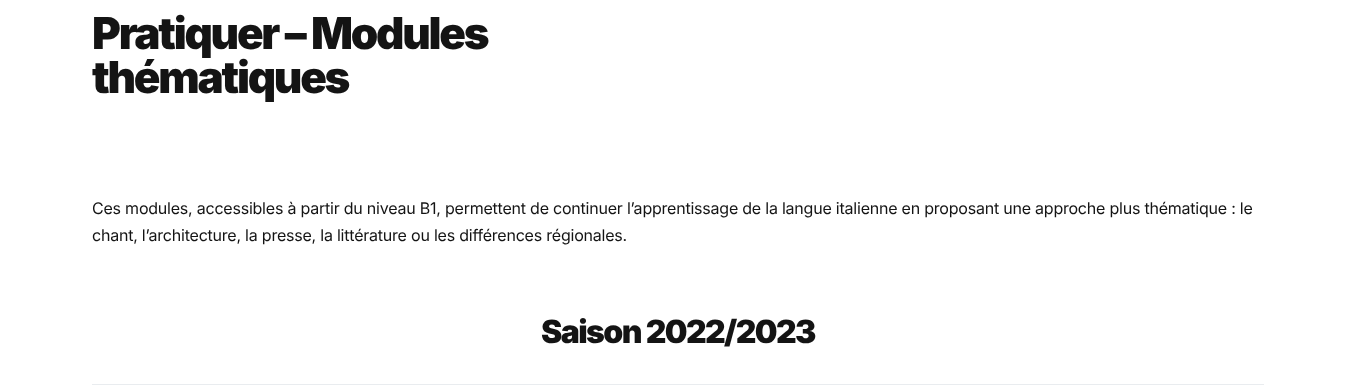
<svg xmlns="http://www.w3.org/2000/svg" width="1356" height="385">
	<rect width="100%" height="100%" fill="#FFFFFF" />
	<g font-family="Inter" font-size="44" font-weight="900" letter-spacing="-2.25" fill="#141414">
		<text x="92" y="49">Pratiquer – Modules</text>
		<text x="92" y="93">thématiques</text>
	</g>
	<g font-family="Inter" font-size="16" letter-spacing="-0.22" fill="#141414">
		<text x="92" y="214">Ces modules, accessibles à partir du niveau B1, permettent de continuer l’apprentissage de la langue italienne en proposant une approche plus thématique : le</text>
		<text x="92" y="241">chant, l’architecture, la presse, la littérature ou les différences régionales.</text>
	</g>
	<text x="541" y="343" font-family="Inter" font-size="32" font-weight="900" letter-spacing="-1.6" fill="#141414">Saison 2022/2023</text>
	<rect x="92" y="384" width="1172" height="1" fill="#E9ECEF" />
</svg>
